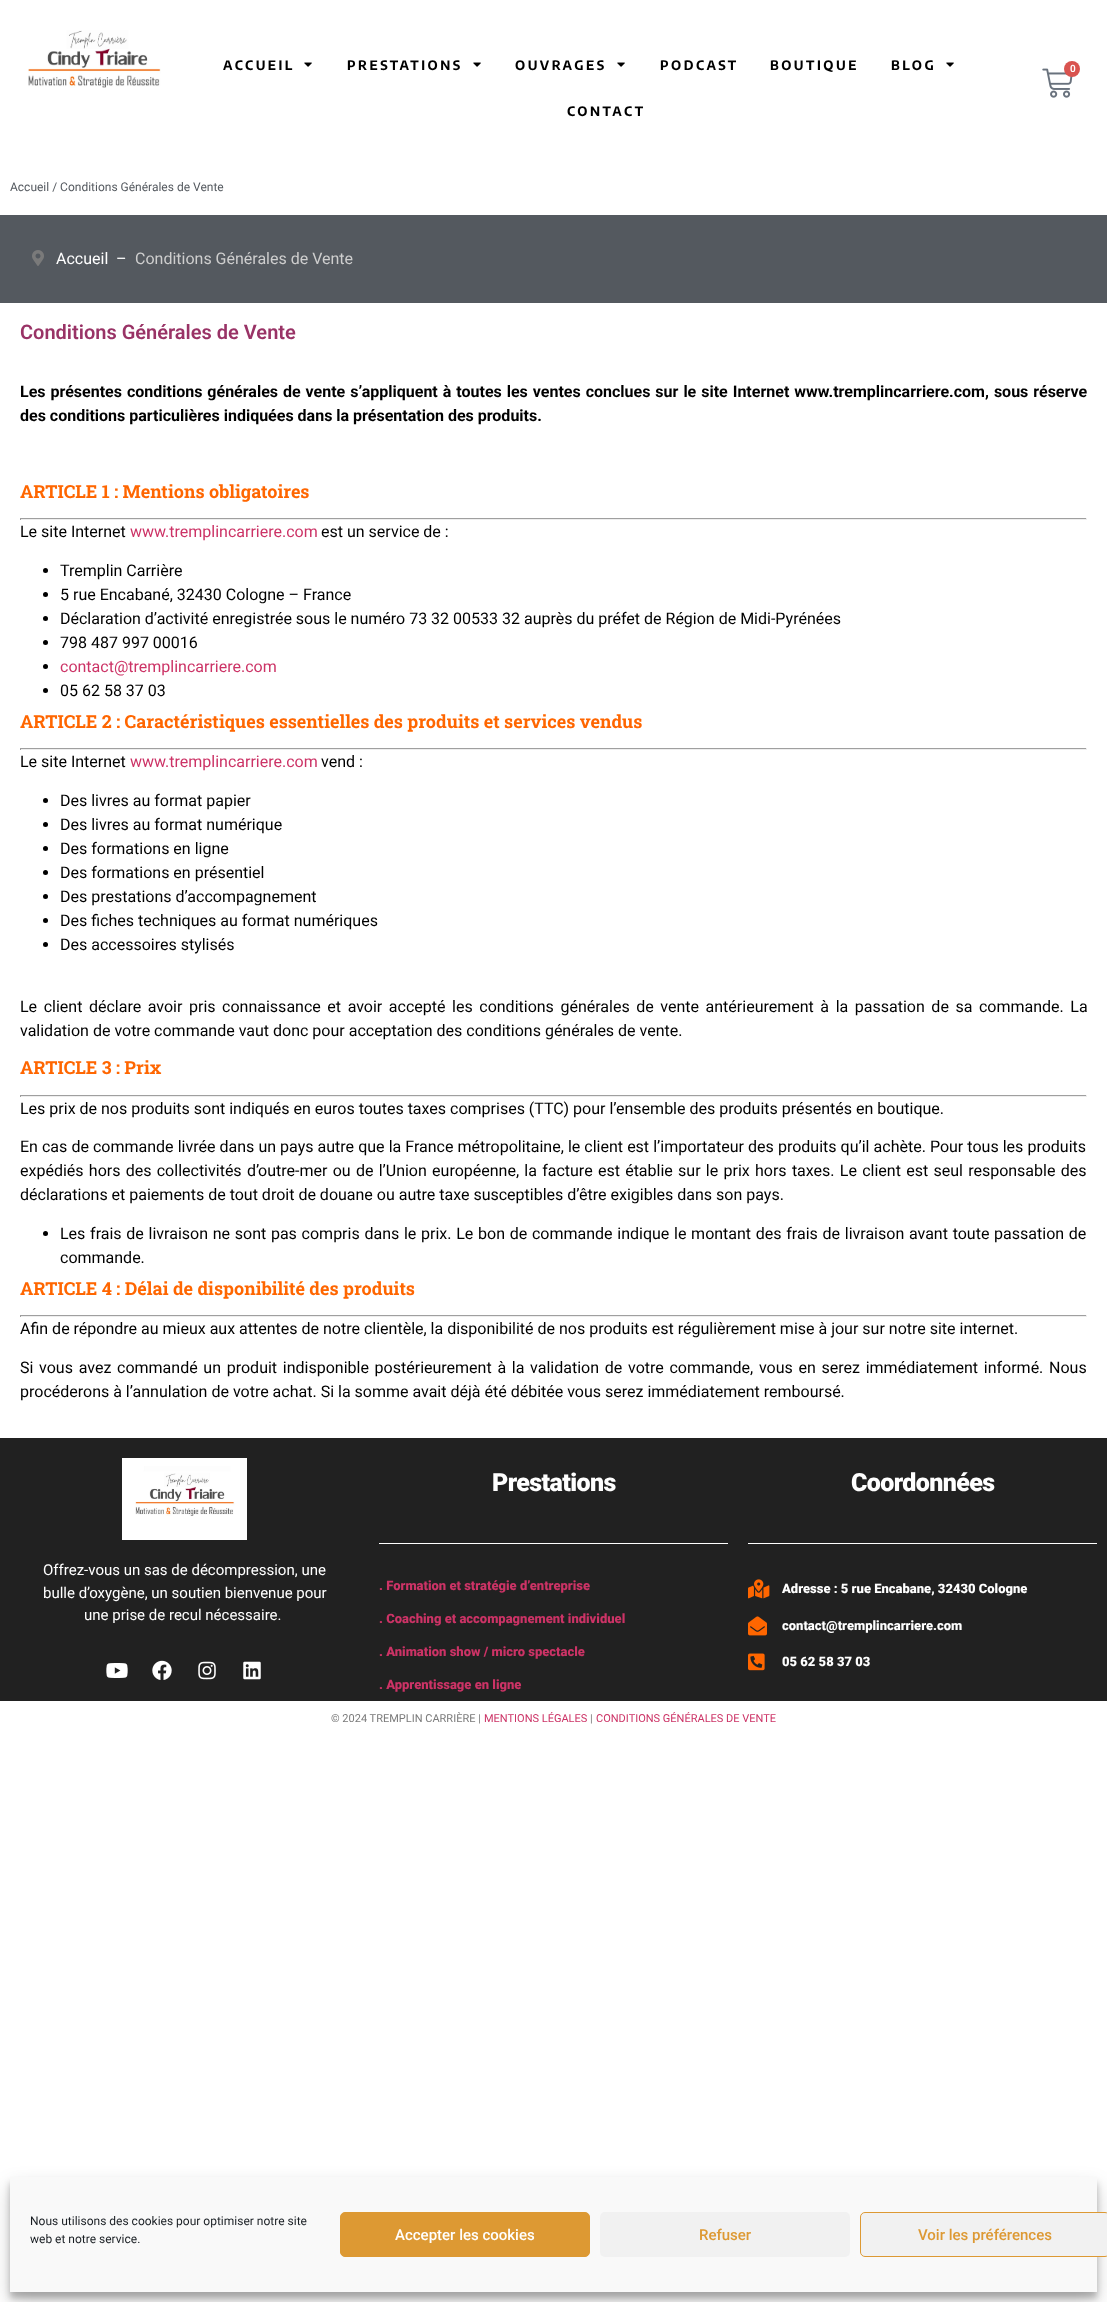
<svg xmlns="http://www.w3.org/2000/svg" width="1107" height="2302">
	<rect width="100%" height="100%" fill="#FFFFFF" />
	<image x="28" y="30" width="133" height="58" href="assets/img1.png" />
	<text x="223" y="70" font-family="Encode Sans Condensed" font-size="13" font-weight="700" letter-spacing="2.5" fill="#000000">ACCUEIL</text>
	<image x="304" y="62" width="8" height="5" href="assets/img2.png" />
	<text x="347" y="70" font-family="Encode Sans Condensed" font-size="13" font-weight="700" letter-spacing="2.5" fill="#000000">PRESTATIONS</text>
	<image x="473" y="62" width="8" height="5" href="assets/img2.png" />
	<text x="515" y="70" font-family="Encode Sans Condensed" font-size="13" font-weight="700" letter-spacing="2.5" fill="#000000">OUVRAGES</text>
	<image x="617" y="62" width="8" height="5" href="assets/img2.png" />
	<g font-family="Encode Sans Condensed" font-size="13" font-weight="700" letter-spacing="2.5" fill="#000000">
		<text x="660" y="70">PODCAST</text>
		<text x="770" y="70">BOUTIQUE</text>
		<text x="891" y="70">BLOG</text>
	</g>
	<image x="946" y="62" width="8" height="5" href="assets/img2.png" />
	<text x="567" y="116" font-family="Encode Sans Condensed" font-size="13" font-weight="700" letter-spacing="2.5" fill="#000000">CONTACT</text>
	<image x="1042" y="68" width="31" height="30" href="assets/img3.png" />
	<circle cx="1072" cy="69" r="8" fill="#D9534F" />
	<text x="1070" y="72" font-family="Roboto" font-size="10" font-weight="600" fill="#FFFFFF">0</text>
	<text x="10" y="191" font-family="Roboto" font-size="12" fill="#54595F">Accueil / Conditions Générales de Vente</text>
	<rect x="0" y="215" width="1107" height="88" fill="#54595F" />
	<image x="32" y="250" width="12" height="16" href="assets/img4.png" />
	<g font-family="Roboto" font-size="16" fill="#FFFFFF">
		<text x="56" y="264">Accueil</text>
		<text x="116" y="264">–</text>
	</g>
	<text x="135" y="264" font-family="Roboto" font-size="16" fill="#CECECE">Conditions Générales de Vente</text>
	<text x="20" y="339" font-family="Roboto" font-size="20" font-weight="600" fill="#993366">Conditions Générales de Vente</text>
	<g font-family="Roboto" font-size="16" font-weight="700" fill="#000000">
		<text x="20" y="397" word-spacing="1">Les présentes conditions générales de vente s’appliquent à toutes les ventes conclues sur le site Internet www.tremplincarriere.com, sous réserve</text>
		<text x="20" y="421">des conditions particulières indiquées dans la présentation des produits.</text>
	</g>
	<text x="20" y="498" font-family="Roboto Slab" font-size="18" font-weight="700" fill="#FF6600">ARTICLE 1 : Mentions obligatoires</text>
	<rect x="20" y="518" width="1067" height="1" fill="#9F9F9F" />
	<rect x="1086" y="518" width="1" height="2" fill="#EEEEEE" />
	<rect x="20" y="519" width="1067" height="1" fill="#EEEEEE" />
	<rect x="20" y="518" width="1" height="2" fill="#9F9F9F" />
	<text x="20" y="537" font-family="Roboto" font-size="16" fill="#000000">Le site Internet</text>
	<text x="130" y="537" font-family="Roboto" font-size="16" fill="#CC3366">www.tremplincarriere.com</text>
	<text x="321" y="537" font-family="Roboto" font-size="16" fill="#000000">est un service de :</text>
	<circle cx="45.5" cy="570.5" r="2.5" fill="#000000" />
	<text x="60" y="576" font-family="Roboto" font-size="16" fill="#000000">Tremplin Carrière</text>
	<circle cx="45.5" cy="594.5" r="2.5" fill="#000000" />
	<text x="60" y="600" font-family="Roboto" font-size="16" fill="#000000">5 rue Encabané, 32430 Cologne – France</text>
	<circle cx="45.5" cy="618.5" r="2.5" fill="#000000" />
	<text x="60" y="624" font-family="Roboto" font-size="16" fill="#000000">Déclaration d’activité enregistrée sous le numéro 73 32 00533 32 auprès du préfet de Région de Midi-Pyrénées</text>
	<circle cx="45.5" cy="642.5" r="2.5" fill="#000000" />
	<text x="60" y="648" font-family="Roboto" font-size="16" fill="#000000">798 487 997 00016</text>
	<circle cx="45.5" cy="666.5" r="2.5" fill="#000000" />
	<text x="60" y="672" font-family="Roboto" font-size="16" fill="#CC3366">contact@tremplincarriere.com</text>
	<circle cx="45.5" cy="690.5" r="2.5" fill="#000000" />
	<text x="60" y="696" font-family="Roboto" font-size="16" fill="#000000">05 62 58 37 03</text>
	<text x="20" y="728" font-family="Roboto Slab" font-size="18" font-weight="700" fill="#FF6600">ARTICLE 2 : Caractéristiques essentielles des produits et services vendus</text>
	<rect x="20" y="748" width="1067" height="1" fill="#9F9F9F" />
	<rect x="1086" y="748" width="1" height="2" fill="#EEEEEE" />
	<rect x="20" y="749" width="1067" height="1" fill="#EEEEEE" />
	<rect x="20" y="748" width="1" height="2" fill="#9F9F9F" />
	<text x="20" y="767" font-family="Roboto" font-size="16" fill="#000000">Le site Internet</text>
	<text x="130" y="767" font-family="Roboto" font-size="16" fill="#CC3366">www.tremplincarriere.com</text>
	<text x="321" y="767" font-family="Roboto" font-size="16" fill="#000000">vend :</text>
	<circle cx="45.5" cy="800.5" r="2.5" fill="#000000" />
	<text x="60" y="806" font-family="Roboto" font-size="16" fill="#000000">Des livres au format papier</text>
	<circle cx="45.5" cy="824.5" r="2.5" fill="#000000" />
	<text x="60" y="830" font-family="Roboto" font-size="16" fill="#000000">Des livres au format numérique</text>
	<circle cx="45.5" cy="848.5" r="2.5" fill="#000000" />
	<text x="60" y="854" font-family="Roboto" font-size="16" fill="#000000">Des formations en ligne</text>
	<circle cx="45.5" cy="872.5" r="2.5" fill="#000000" />
	<text x="60" y="878" font-family="Roboto" font-size="16" fill="#000000">Des formations en présentiel</text>
	<circle cx="45.5" cy="896.5" r="2.5" fill="#000000" />
	<text x="60" y="902" font-family="Roboto" font-size="16" fill="#000000">Des prestations d’accompagnement</text>
	<circle cx="45.5" cy="920.5" r="2.5" fill="#000000" />
	<text x="60" y="926" font-family="Roboto" font-size="16" fill="#000000">Des fiches techniques au format numériques</text>
	<circle cx="45.5" cy="944.5" r="2.5" fill="#000000" />
	<g font-family="Roboto" font-size="16" fill="#000000">
		<text x="60" y="950">Des accessoires stylisés</text>
		<text x="20" y="1012" word-spacing="2.6">Le client déclare avoir pris connaissance et avoir accepté les conditions générales de vente antérieurement à la passation de sa commande. La</text>
		<text x="20" y="1036">validation de votre commande vaut donc pour acceptation des conditions générales de vente.</text>
	</g>
	<text x="20" y="1074" font-family="Roboto Slab" font-size="18" font-weight="700" fill="#FF6600">ARTICLE 3 : Prix</text>
	<rect x="20" y="1095" width="1067" height="1" fill="#9F9F9F" />
	<rect x="1086" y="1095" width="1" height="2" fill="#EEEEEE" />
	<rect x="20" y="1096" width="1067" height="1" fill="#EEEEEE" />
	<rect x="20" y="1095" width="1" height="2" fill="#9F9F9F" />
	<g font-family="Roboto" font-size="16" fill="#000000">
		<text x="20" y="1114">Les prix de nos produits sont indiqués en euros toutes taxes comprises (TTC) pour l’ensemble des produits présentés en boutique.</text>
		<text x="20" y="1152" word-spacing="0.1">En cas de commande livrée dans un pays autre que la France métropolitaine, le client est l’importateur des produits qu’il achète. Pour tous les produits</text>
		<text x="20" y="1176" word-spacing="1.3">expédiés hors des collectivités d’outre-mer ou de l’Union européenne, la facture est établie sur le prix hors taxes. Le client est seul responsable des</text>
		<text x="20" y="1200">déclarations et paiements de tout droit de douane ou autre taxe susceptibles d’être exigibles dans son pays.</text>
	</g>
	<circle cx="45.5" cy="1233.5" r="2.5" fill="#000000" />
	<g font-family="Roboto" font-size="16" fill="#000000">
		<text x="60" y="1239" word-spacing="0.75">Les frais de livraison ne sont pas compris dans le prix. Le bon de commande indique le montant des frais de livraison avant toute passation de</text>
		<text x="60" y="1263">commande.</text>
	</g>
	<text x="20" y="1295" font-family="Roboto Slab" font-size="18" font-weight="700" fill="#FF6600">ARTICLE 4 : Délai de disponibilité des produits</text>
	<rect x="20" y="1315" width="1067" height="1" fill="#9F9F9F" />
	<rect x="1086" y="1315" width="1" height="2" fill="#EEEEEE" />
	<rect x="20" y="1316" width="1067" height="1" fill="#EEEEEE" />
	<rect x="20" y="1315" width="1" height="2" fill="#9F9F9F" />
	<g font-family="Roboto" font-size="16" fill="#000000">
		<text x="20" y="1334">Afin de répondre au mieux aux attentes de notre clientèle, la disponibilité de nos produits est régulièrement mise à jour sur notre site internet.</text>
		<text x="20" y="1373" word-spacing="1.75">Si vous avez commandé un produit indisponible postérieurement à la validation de votre commande, vous en serez immédiatement informé. Nous</text>
		<text x="20" y="1397">procéderons à l’annulation de votre achat. Si la somme avait déjà été débitée vous serez immédiatement remboursé.</text>
	</g>
	<rect x="0" y="1438" width="1107" height="263" fill="#212121" />
	<image x="122" y="1458" width="125" height="82" href="assets/img5.png" />
	<g font-family="Roboto" font-size="15" fill="#FFFFFF">
		<text x="43" y="1575">Offrez-vous un sas de décompression, une</text>
		<text x="43" y="1598">bulle d’oxygène, un soutien bienvenue pour</text>
		<text x="84" y="1620">une prise de recul nécessaire.</text>
	</g>
	<image x="106" y="1663" width="22" height="15" href="assets/img6.png" />
	<image x="152" y="1660" width="20" height="20" href="assets/img7.png" />
	<image x="198" y="1661" width="18" height="19" href="assets/img8.png" />
	<image x="243" y="1661" width="18" height="19" href="assets/img9.png" />
	<text x="492" y="1491" font-family="Roboto" font-size="25" font-weight="900" letter-spacing="-0.6" fill="#FFFFFF">Prestations</text>
	<rect x="379" y="1543" width="349" height="1" fill="#FFFFFF" />
	<g font-family="Roboto" font-size="13" font-weight="900" fill="#CC3366">
		<text x="379" y="1590">. Formation et stratégie d’entreprise</text>
		<text x="379" y="1623">. Coaching et accompagnement individuel</text>
		<text x="379" y="1656">. Animation show / micro spectacle</text>
		<text x="379" y="1689">. Apprentissage en ligne</text>
	</g>
	<text x="851" y="1491" font-family="Roboto" font-size="25" font-weight="900" letter-spacing="-0.6" fill="#FFFFFF">Coordonnées</text>
	<rect x="748" y="1543" width="349" height="1" fill="#FFFFFF" />
	<image x="748" y="1579" width="22" height="20" href="assets/img10.png" />
	<text x="782" y="1593" font-family="Roboto" font-size="13" font-weight="900" fill="#FFFFFF">Adresse : 5 rue Encabane, 32430 Cologne</text>
	<image x="748" y="1616" width="19" height="20" href="assets/img11.png" />
	<text x="782" y="1630" font-family="Roboto" font-size="13" font-weight="900" fill="#FFFFFF">contact@tremplincarriere.com</text>
	<image x="748" y="1653" width="17" height="18" href="assets/img12.png" />
	<text x="782" y="1666" font-family="Roboto" font-size="13" font-weight="900" fill="#FFFFFF">05 62 58 37 03</text>
	<text x="331" y="1722" font-family="Roboto" font-size="11" fill="#7A7A7A">© 2024 TREMPLIN CARRIÈRE |</text>
	<text x="484" y="1722" font-family="Roboto" font-size="11" fill="#CC3366">MENTIONS LÉGALES</text>
	<text x="590" y="1722" font-family="Roboto" font-size="11" fill="#7A7A7A">|</text>
	<text x="596" y="1722" font-family="Roboto" font-size="11" fill="#CC3366">CONDITIONS GÉNÉRALES DE VENTE</text>
	<rect x="10" y="2183" width="1087" height="115" fill="#000000" fill-opacity="0.23" filter="blur(3px)" />
	<rect x="10" y="2187" width="1087" height="115" fill="#000000" fill-opacity="0.19" filter="blur(10px)" />
	<rect x="10" y="2177" width="1087" height="115" fill="#F9F9F9" />
	<g font-family="Roboto" font-size="12" fill="#191E23">
		<text x="30" y="2225">Nous utilisons des cookies pour optimiser notre site</text>
		<text x="30" y="2243">web et notre service.</text>
	</g>
	<rect x="340.5" y="2212.5" width="249" height="44" rx="4.5" fill="#DD9933" stroke="#DD9933" />
	<text x="395" y="2240" font-family="Roboto" font-size="15" font-weight="500" fill="#FFFFFF">Accepter les cookies</text>
	<rect x="600" y="2212" width="250" height="45" rx="5" fill="#F1F1F1" />
	<text x="699" y="2240" font-family="Roboto" font-size="15" font-weight="500" fill="#DD9933">Refuser</text>
	<rect x="860.5" y="2212.5" width="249" height="44" rx="4.5" fill="#F1F1F1" stroke="#DD9933" />
	<text x="918" y="2240" font-family="Roboto" font-size="15" font-weight="500" fill="#DD9933">Voir les préférences</text>
</svg>
